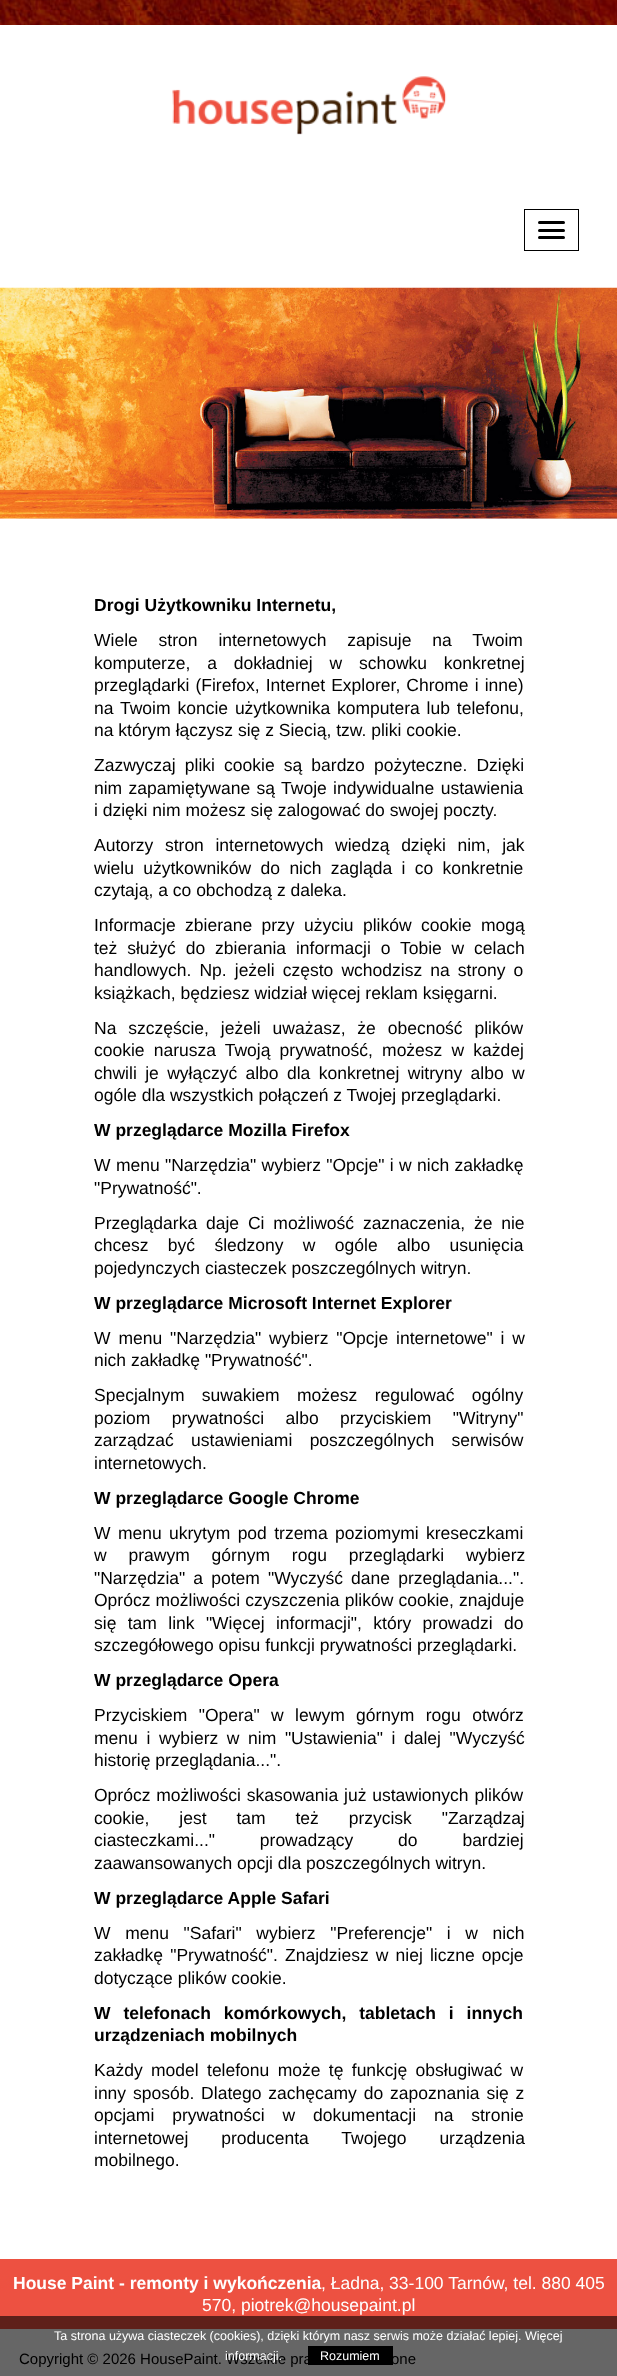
<svg xmlns="http://www.w3.org/2000/svg" width="617" height="2376">
	<rect width="100%" height="100%" fill="#FFFFFF" />
	<image x="0" y="0" width="617" height="25" href="assets/img1.png" />
	<image x="172" y="76" width="275" height="59" href="assets/img2.png" />
	<rect x="524.5" y="209.5" width="54" height="41" fill="none" stroke="#000000" />
	<rect x="538" y="221" width="27" height="3" rx="1.5" fill="#000000" />
	<rect x="538" y="229" width="27" height="3" rx="1.5" fill="#000000" />
	<rect x="538" y="236" width="27" height="3" rx="1.5" fill="#000000" />
	<image x="0" y="287" width="617" height="232" href="assets/img3.png" />
	<text x="94" y="611" font-family="Liberation Sans" font-size="17.5" font-weight="700" fill="#000000">Drogi Użytkowniku Internetu,</text>
	<g font-family="Liberation Sans" font-size="17.5" fill="#000000">
		<text x="94" y="646" word-spacing="16">Wiele stron internetowych zapisuje na Twoim</text>
		<text x="94" y="669" word-spacing="12">komputerze, a dokładniej w schowku konkretnej</text>
		<text x="94" y="691" word-spacing="1.25">przeglądarki (Firefox, Internet Explorer, Chrome i inne)</text>
		<text x="94" y="714" word-spacing="2">na Twoim koncie użytkownika komputera lub telefonu,</text>
		<text x="94" y="736">na którym łączysz się z Siecią, tzw. pliki cookie.</text>
		<text x="94" y="771" word-spacing="4.25">Zazwyczaj pliki cookie są bardzo pożyteczne. Dzięki</text>
		<text x="94" y="794" word-spacing="1.5">nim zapamiętywane są Twoje indywidualne ustawienia</text>
		<text x="94" y="816">i dzięki nim możesz się zalogować do swojej poczty.</text>
		<text x="94" y="851" word-spacing="6.75">Autorzy stron internetowych wiedzą dzięki nim, jak</text>
		<text x="94" y="874" word-spacing="4.5">wielu użytkowników do nich zagląda i co konkretnie</text>
		<text x="94" y="896">czytają, a co obchodzą z daleka.</text>
		<text x="94" y="931" word-spacing="4.5">Informacje zbierane przy użyciu plików cookie mogą</text>
		<text x="94" y="954" word-spacing="5">też służyć do zbierania informacji o Tobie w celach</text>
		<text x="94" y="976" word-spacing="3.25">handlowych. Np. jeżeli często wchodzisz na strony o</text>
		<text x="94" y="999">książkach, będziesz widział więcej reklam księgarni.</text>
		<text x="94" y="1034" word-spacing="7">Na szczęście, jeżeli uważasz, że obecność plików</text>
		<text x="94" y="1056" word-spacing="4.25">cookie narusza Twoją prywatność, możesz w każdej</text>
		<text x="94" y="1079" word-spacing="3.5">chwili je wyłączyć albo dla konkretnej witryny albo w</text>
		<text x="94" y="1101">ogóle dla wszystkich połączeń z Twojej przeglądarki.</text>
	</g>
	<text x="94" y="1136" font-family="Liberation Sans" font-size="17.5" font-weight="700" fill="#000000">W przeglądarce Mozilla Firefox</text>
	<g font-family="Liberation Sans" font-size="17.5" fill="#000000">
		<text x="94" y="1171" word-spacing="0.5">W menu "Narzędzia" wybierz "Opcje" i w nich zakładkę</text>
		<text x="94" y="1194">"Prywatność".</text>
		<text x="94" y="1229" word-spacing="4">Przeglądarka daje Ci możliwość zaznaczenia, że nie</text>
		<text x="94" y="1251" word-spacing="14.5">chcesz być śledzony w ogóle albo usunięcia</text>
		<text x="94" y="1274">pojedynczych ciasteczek poszczególnych witryn.</text>
	</g>
	<text x="94" y="1309" font-family="Liberation Sans" font-size="17.5" font-weight="700" fill="#000000">W przeglądarce Microsoft Internet Explorer</text>
	<g font-family="Liberation Sans" font-size="17.5" fill="#000000">
		<text x="94" y="1344" word-spacing="3">W menu "Narzędzia" wybierz "Opcje internetowe" i w</text>
		<text x="94" y="1366">nich zakładkę "Prywatność".</text>
		<text x="94" y="1401" word-spacing="12.5">Specjalnym suwakiem możesz regulować ogólny</text>
		<text x="94" y="1424" word-spacing="16.5">poziom prywatności albo przyciskiem "Witryny"</text>
		<text x="94" y="1446" word-spacing="12.5">zarządzać ustawieniami poszczególnych serwisów</text>
		<text x="94" y="1469">internetowych.</text>
	</g>
	<text x="94" y="1504" font-family="Liberation Sans" font-size="17.5" font-weight="700" fill="#000000">W przeglądarce Google Chrome</text>
	<g font-family="Liberation Sans" font-size="17.5" fill="#000000">
		<text x="94" y="1539" word-spacing="2.5">W menu ukrytym pod trzema poziomymi kreseczkami</text>
		<text x="94" y="1561" word-spacing="17">w prawym górnym rogu przeglądarki wybierz</text>
		<text x="94" y="1584" word-spacing="3.25">"Narzędzia" a potem "Wyczyść dane przeglądania...".</text>
		<text x="94" y="1606" word-spacing="0.25">Oprócz możliwości czyszczenia plików cookie, znajduje</text>
		<text x="94" y="1629" word-spacing="6.5">się tam link "Więcej informacji", który prowadzi do</text>
		<text x="94" y="1651">szczegółowego opisu funkcji prywatności przeglądarki.</text>
	</g>
	<text x="94" y="1686" font-family="Liberation Sans" font-size="17.5" font-weight="700" fill="#000000">W przeglądarce Opera</text>
	<g font-family="Liberation Sans" font-size="17.5" fill="#000000">
		<text x="94" y="1721" word-spacing="6.5">Przyciskiem "Opera" w lewym górnym rogu otwórz</text>
		<text x="94" y="1744" word-spacing="3.75">menu i wybierz w nim "Ustawienia" i dalej "Wyczyść</text>
		<text x="94" y="1766">historię przeglądania...".</text>
		<text x="94" y="1801" word-spacing="1">Oprócz możliwości skasowania już ustawionych plików</text>
		<text x="94" y="1824" word-spacing="25">cookie, jest tam też przycisk "Zarządzaj</text>
		<text x="94" y="1846" word-spacing="40">ciasteczkami..." prowadzący do bardziej</text>
		<text x="94" y="1869">zaawansowanych opcji dla poszczególnych witryn.</text>
	</g>
	<text x="94" y="1904" font-family="Liberation Sans" font-size="17.5" font-weight="700" fill="#000000">W przeglądarce Apple Safari</text>
	<g font-family="Liberation Sans" font-size="17.5" fill="#000000">
		<text x="94" y="1939" word-spacing="9.75">W menu "Safari" wybierz "Preferencje" i w nich</text>
		<text x="94" y="1961" word-spacing="2.25">zakładkę "Prywatność". Znajdziesz w niej liczne opcje</text>
		<text x="94" y="1984">dotyczące plików cookie.</text>
	</g>
	<g font-family="Liberation Sans" font-size="17.5" font-weight="700" fill="#000000">
		<text x="94" y="2019" word-spacing="8">W telefonach komórkowych, tabletach i innych</text>
		<text x="94" y="2041">urządzeniach mobilnych</text>
	</g>
	<g font-family="Liberation Sans" font-size="17.5" fill="#000000">
		<text x="94" y="2076" word-spacing="3.5">Każdy model telefonu może tę funkcję obsługiwać w</text>
		<text x="94" y="2099" word-spacing="2">inny sposób. Dlatego zachęcamy do zapoznania się z</text>
		<text x="94" y="2121" word-spacing="13">opcjami prywatności w dokumentacji na stronie</text>
		<text x="94" y="2144" word-spacing="28">internetowej producenta Twojego urządzenia</text>
		<text x="94" y="2166">mobilnego.</text>
	</g>
	<rect x="0" y="2259" width="617" height="70" fill="#ED5141" />
	<text x="13" y="2289" font-family="Liberation Sans" font-size="17.5" font-weight="700" fill="#FFFFFF">House Paint - remonty i wykończenia</text>
	<g font-family="Liberation Sans" font-size="17.5" fill="#FFFFFF">
		<text x="321" y="2289">, Ładna, 33-100 Tarnów, tel. 880 405</text>
		<text x="202" y="2311">570, piotrek@housepaint.pl</text>
	</g>
	<g font-family="Liberation Sans" font-size="15" fill="#000000">
		<text x="19" y="2364">Copyright © 2026 HousePaint. Wszelkie pra</text>
		<text x="391" y="2364">one</text>
	</g>
	<rect x="0" y="2316" width="617" height="60" fill="#000000" fill-opacity="0.6" />
	<g font-family="Liberation Sans" font-size="12.5" fill="#FFFFFF">
		<text x="54" y="2340">Ta strona używa ciasteczek (cookies), dzięki którym nasz serwis może działać lepiej. Więcej</text>
		<text x="225" y="2360">informacji.</text>
	</g>
	<rect x="308" y="2346" width="85" height="19" fill="#000000" />
	<text x="320" y="2360" font-family="Liberation Sans" font-size="12.5" fill="#FFFFFF">Rozumiem</text>
</svg>
